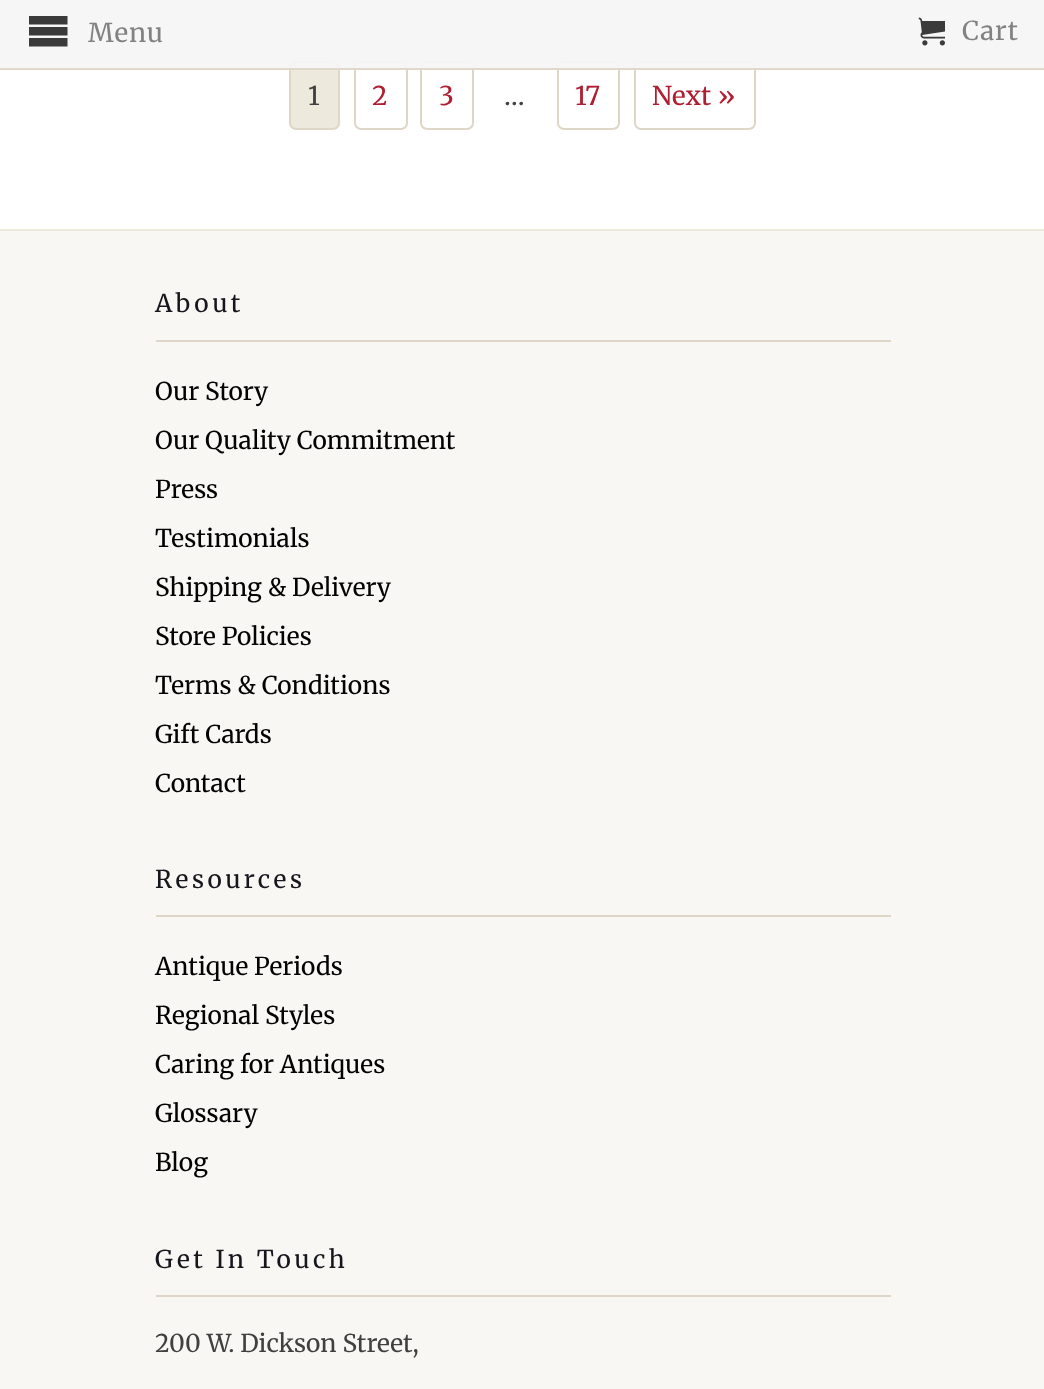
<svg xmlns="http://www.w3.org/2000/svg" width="1044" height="1389">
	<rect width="100%" height="100%" fill="#FFFFFF" />
	<rect x="290" y="62" width="49" height="67" rx="6" fill="#EDE9DD" stroke="#DED6C7" stroke-width="2" />
	<rect x="355" y="62" width="52" height="67" rx="6" fill="none" stroke="#DED6C7" stroke-width="2" />
	<rect x="421" y="62" width="52" height="67" rx="6" fill="none" stroke="#DED6C7" stroke-width="2" />
	<rect x="558" y="62" width="61" height="67" rx="6" fill="none" stroke="#DED6C7" stroke-width="2" />
	<rect x="635" y="62" width="120" height="67" rx="6" fill="none" stroke="#DED6C7" stroke-width="2" />
	<rect x="0" y="0" width="1044" height="70" fill="#F5F5F5" fill-opacity="0.95" />
	<rect x="0" y="68" width="1044" height="2" fill="#DED6C7" fill-opacity="0.95" />
	<path d="M29 16V24.5H67.5V16ZM29 27V35.5H67.5V27ZM29 38V46.5H67.5V38Z" fill="#3A3A3A" />
	<text x="88" y="42" font-family="Merriweather" font-size="26" letter-spacing="1" fill="#828282">Menu</text>
	<image x="918" y="17" width="27" height="29" href="assets/img1.png" />
	<text x="962" y="40" font-family="Merriweather" font-size="26" letter-spacing="1" fill="#828282">Cart</text>
	<text x="308" y="105" font-family="Merriweather" font-size="26" fill="#404040">1</text>
	<g font-family="Merriweather" font-size="26" fill="#AF1F31">
		<text x="372" y="105">2</text>
		<text x="439" y="105">3</text>
	</g>
	<text x="504" y="105" font-family="Merriweather" font-size="26" fill="#404040">…</text>
	<g font-family="Merriweather" font-size="26" fill="#AF1F31">
		<text x="575" y="105">17</text>
		<text x="652" y="105">Next »</text>
	</g>
	<rect x="0" y="231" width="1044" height="1158" fill="#F9F7F3" />
	<rect x="0" y="229" width="1044" height="2" fill="#EDE9DD" />
	<rect x="156" y="340" width="735" height="2" fill="#DED6C7" />
	<text x="155" y="312" font-family="Merriweather" font-size="24.5" letter-spacing="3.5" fill="#16161D">About</text>
	<g font-family="Merriweather" font-size="24.5" fill="#020202">
		<text x="155" y="400">Our Story</text>
		<text x="155" y="449">Our Quality Commitment</text>
		<text x="155" y="498">Press</text>
		<text x="155" y="547">Testimonials</text>
		<text x="155" y="596">Shipping &amp; Delivery</text>
		<text x="155" y="645">Store Policies</text>
		<text x="155" y="694">Terms &amp; Conditions</text>
		<text x="155" y="743">Gift Cards</text>
		<text x="155" y="792">Contact</text>
	</g>
	<rect x="156" y="915" width="735" height="2" fill="#DED6C7" />
	<text x="155" y="888" font-family="Merriweather" font-size="24.5" letter-spacing="3.5" fill="#16161D">Resources</text>
	<g font-family="Merriweather" font-size="24.5" fill="#020202">
		<text x="155" y="975">Antique Periods</text>
		<text x="155" y="1024">Regional Styles</text>
		<text x="155" y="1073">Caring for Antiques</text>
		<text x="155" y="1122">Glossary</text>
		<text x="155" y="1171">Blog</text>
	</g>
	<rect x="156" y="1295" width="735" height="2" fill="#DED6C7" />
	<text x="155" y="1268" font-family="Merriweather" font-size="24.5" letter-spacing="3.5" fill="#16161D">Get In Touch</text>
	<text x="155" y="1352" font-family="Merriweather" font-size="24.5" fill="#404040">200 W. Dickson Street,</text>
</svg>
